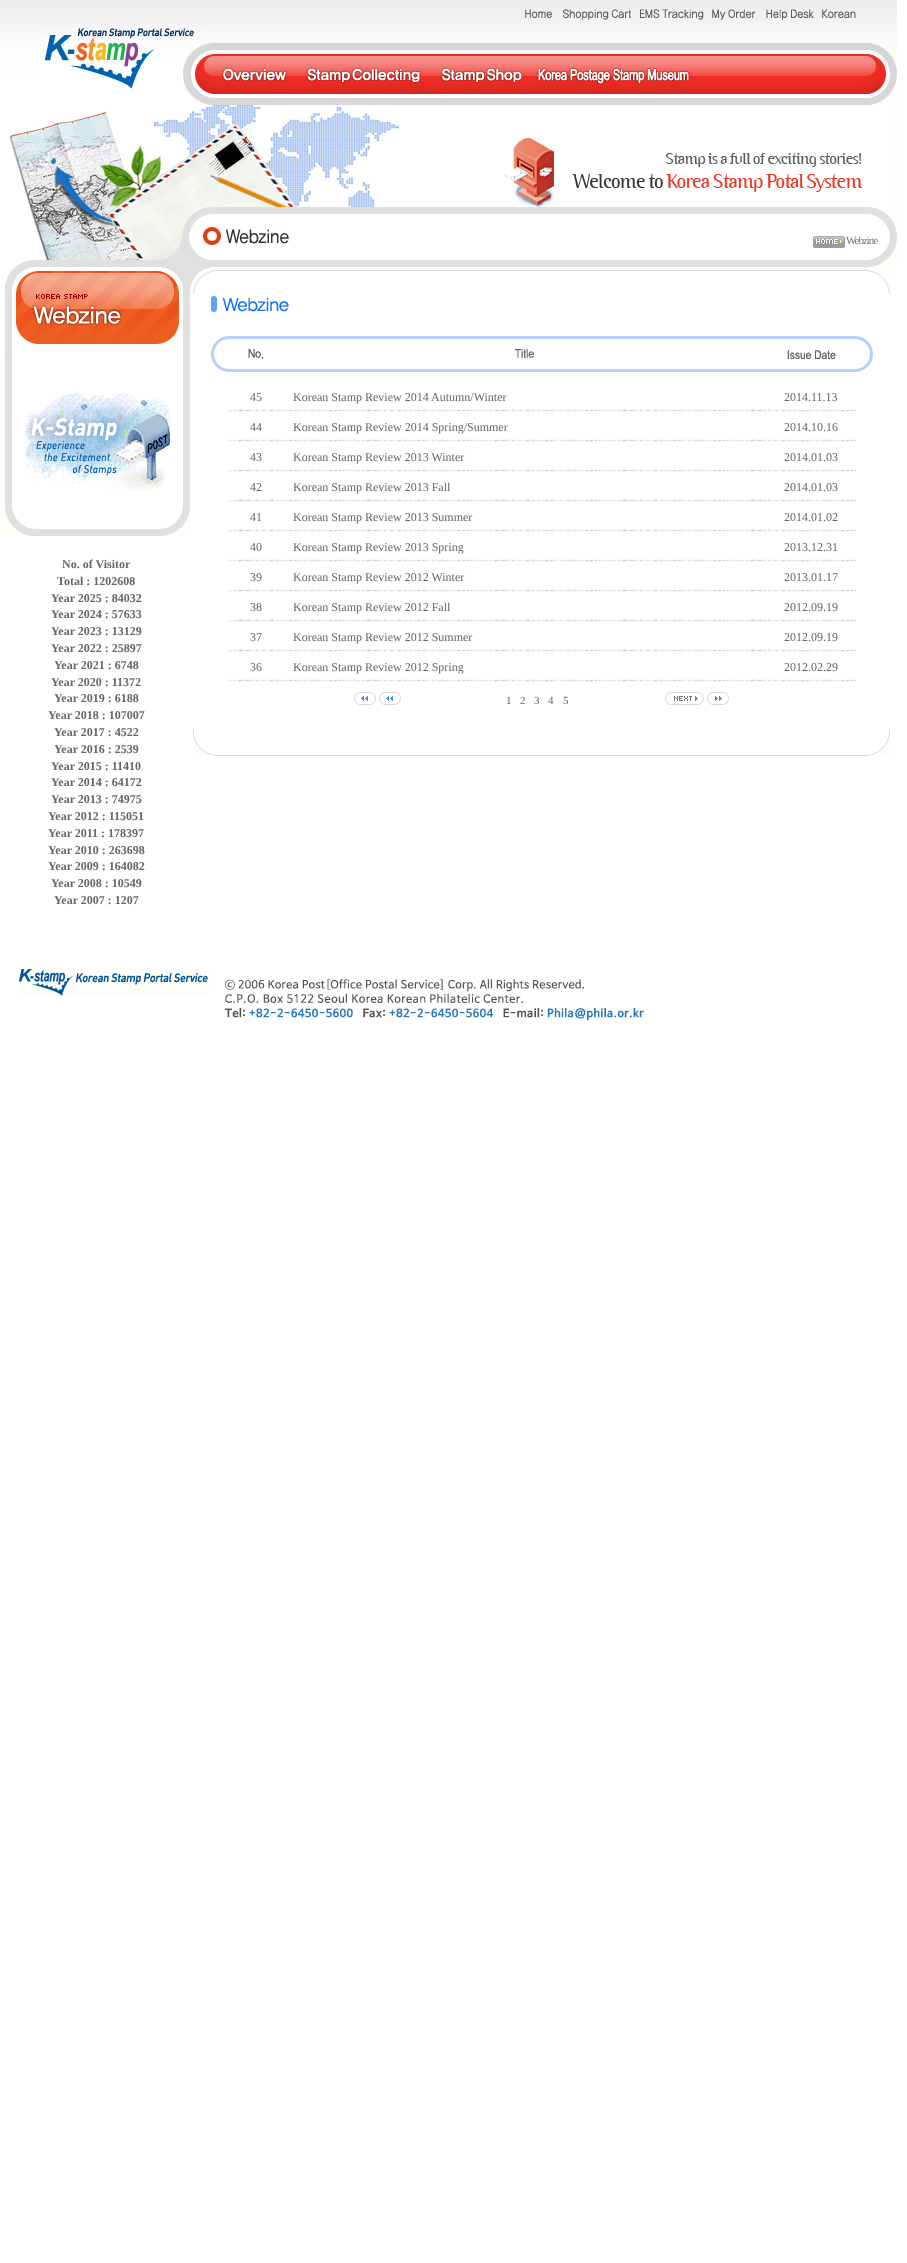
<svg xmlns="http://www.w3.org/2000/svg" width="907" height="2263">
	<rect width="100%" height="100%" fill="#FFFFFF" />
	<image x="0" y="0" width="897" height="105" href="assets/img1.png" />
	<image x="525" y="9" width="27" height="10" href="assets/img2.png" />
	<image x="562" y="9" width="69" height="11" href="assets/img3.png" />
	<image x="640" y="9" width="64" height="11" href="assets/img4.png" />
	<image x="712" y="9" width="44" height="11" href="assets/img5.png" />
	<image x="766" y="9" width="48" height="11" href="assets/img6.png" />
	<image x="822" y="9" width="34" height="10" href="assets/img7.png" />
	<image x="43" y="28" width="164" height="65" href="assets/img8.png" />
	<image x="222" y="64" width="65" height="23" href="assets/img9.png" />
	<image x="304" y="65" width="118" height="22" href="assets/img10.png" />
	<image x="441" y="65" width="96" height="21" href="assets/img11.png" />
	<image x="537" y="64" width="153" height="21" href="assets/img12.png" />
	<image x="8" y="105" width="889" height="102" href="assets/img13.png" />
	<image x="572" y="153" width="290" height="39" href="assets/img14.png" />
	<image x="13" y="207" width="884" height="63" href="assets/img15.png" />
	<image x="203" y="227" width="18" height="18" href="assets/img16.png" />
	<image x="226" y="229" width="63" height="15" href="assets/img17.png" />
	<image x="813" y="236" width="32" height="12" href="assets/img18.png" />
	<text x="846" y="244" font-family="Liberation Serif" font-size="11" letter-spacing="-1" fill="#797979">Webzine</text>
	<image x="5" y="270" width="188" height="83" href="assets/img19.png" />
	<image x="0" y="353" width="190" height="154" href="assets/img20.png" />
	<image x="24" y="391" width="147" height="99" href="assets/img21.png" />
	<image x="0" y="507" width="190" height="29" href="assets/img22.png" />
	<g font-family="Liberation Serif" font-size="12" font-weight="700" fill="#666666">
		<text x="62" y="568">No. of Visitor</text>
		<text x="57" y="585">Total : 1202608</text>
		<text x="51" y="602">Year 2025 : 84032</text>
		<text x="51" y="618">Year 2024 : 57633</text>
		<text x="51" y="635">Year 2023 : 13129</text>
		<text x="51" y="652">Year 2022 : 25897</text>
		<text x="54" y="669">Year 2021 : 6748</text>
		<text x="51" y="686">Year 2020 : 11372</text>
		<text x="54" y="702">Year 2019 : 6188</text>
		<text x="48" y="719">Year 2018 : 107007</text>
		<text x="54" y="736">Year 2017 : 4522</text>
		<text x="54" y="753">Year 2016 : 2539</text>
		<text x="51" y="770">Year 2015 : 11410</text>
		<text x="51" y="786">Year 2014 : 64172</text>
		<text x="51" y="803">Year 2013 : 74975</text>
		<text x="48" y="820">Year 2012 : 115051</text>
		<text x="48" y="837">Year 2011 : 178397</text>
		<text x="48" y="854">Year 2010 : 263698</text>
		<text x="48" y="870">Year 2009 : 164082</text>
		<text x="51" y="887">Year 2008 : 10549</text>
		<text x="54" y="904">Year 2007 : 1207</text>
	</g>
	<image x="193" y="267" width="697" height="27" href="assets/img23.png" />
	<image x="211" y="296" width="78" height="16" href="assets/img24.png" />
	<image x="211" y="336" width="17" height="36" href="assets/img25.png" />
	<image x="228" y="336" width="55" height="36" href="assets/img26.png" />
	<image x="248" y="349" width="16" height="10" href="assets/img27.png" />
	<image x="283" y="336" width="483" height="36" href="assets/img28.png" />
	<image x="515" y="349" width="19" height="9" href="assets/img29.png" />
	<image x="766" y="336" width="90" height="36" href="assets/img30.png" />
	<image x="787" y="350" width="49" height="9" href="assets/img31.png" />
	<image x="856" y="336" width="17" height="36" href="assets/img32.png" />
	<g font-family="Liberation Serif" font-size="12" fill="#666666">
		<text x="250" y="401">45</text>
		<text x="293" y="401">Korean Stamp Review 2014 Autumn/Winter</text>
		<text x="784" y="401">2014.11.13</text>
	</g>
	<image x="228" y="409" width="628" height="3" href="assets/img33.png" />
	<g font-family="Liberation Serif" font-size="12" fill="#666666">
		<text x="250" y="431">44</text>
		<text x="293" y="431">Korean Stamp Review 2014 Spring/Summer</text>
		<text x="784" y="431">2014.10.16</text>
	</g>
	<image x="228" y="439" width="628" height="3" href="assets/img33.png" />
	<g font-family="Liberation Serif" font-size="12" fill="#666666">
		<text x="250" y="461">43</text>
		<text x="293" y="461">Korean Stamp Review 2013 Winter</text>
		<text x="784" y="461">2014.01.03</text>
	</g>
	<image x="228" y="469" width="628" height="3" href="assets/img33.png" />
	<g font-family="Liberation Serif" font-size="12" fill="#666666">
		<text x="250" y="491">42</text>
		<text x="293" y="491">Korean Stamp Review 2013 Fall</text>
		<text x="784" y="491">2014.01.03</text>
	</g>
	<image x="228" y="499" width="628" height="3" href="assets/img33.png" />
	<g font-family="Liberation Serif" font-size="12" fill="#666666">
		<text x="250" y="521">41</text>
		<text x="293" y="521">Korean Stamp Review 2013 Summer</text>
		<text x="784" y="521">2014.01.02</text>
	</g>
	<image x="228" y="529" width="628" height="3" href="assets/img33.png" />
	<g font-family="Liberation Serif" font-size="12" fill="#666666">
		<text x="250" y="551">40</text>
		<text x="293" y="551">Korean Stamp Review 2013 Spring</text>
		<text x="784" y="551">2013.12.31</text>
	</g>
	<image x="228" y="559" width="628" height="3" href="assets/img33.png" />
	<g font-family="Liberation Serif" font-size="12" fill="#666666">
		<text x="250" y="581">39</text>
		<text x="293" y="581">Korean Stamp Review 2012 Winter</text>
		<text x="784" y="581">2013.01.17</text>
	</g>
	<image x="228" y="589" width="628" height="3" href="assets/img33.png" />
	<g font-family="Liberation Serif" font-size="12" fill="#666666">
		<text x="250" y="611">38</text>
		<text x="293" y="611">Korean Stamp Review 2012 Fall</text>
		<text x="784" y="611">2012.09.19</text>
	</g>
	<image x="228" y="619" width="628" height="3" href="assets/img33.png" />
	<g font-family="Liberation Serif" font-size="12" fill="#666666">
		<text x="250" y="641">37</text>
		<text x="293" y="641">Korean Stamp Review 2012 Summer</text>
		<text x="784" y="641">2012.09.19</text>
	</g>
	<image x="228" y="649" width="628" height="3" href="assets/img33.png" />
	<g font-family="Liberation Serif" font-size="12" fill="#666666">
		<text x="250" y="671">36</text>
		<text x="293" y="671">Korean Stamp Review 2012 Spring</text>
		<text x="784" y="671">2012.02.29</text>
	</g>
	<image x="228" y="679" width="628" height="3" href="assets/img33.png" />
	<image x="354" y="692" width="22" height="13" href="assets/img34.png" />
	<image x="379" y="692" width="22" height="13" href="assets/img34.png" />
	<g font-family="Liberation Serif" font-size="11" fill="#666666">
		<text x="506" y="704">1</text>
		<text x="520" y="704">2</text>
		<text x="534" y="704">3</text>
		<text x="548" y="704">4</text>
		<text x="563" y="704">5</text>
	</g>
	<image x="665" y="692" width="39" height="13" href="assets/img35.png" />
	<image x="707" y="692" width="22" height="13" href="assets/img36.png" />
	<image x="193" y="729" width="697" height="27" href="assets/img37.png" />
	<image x="19" y="969" width="190" height="27" href="assets/img38.png" />
	<image x="225" y="979" width="419" height="41" href="assets/img39.png" />
</svg>
